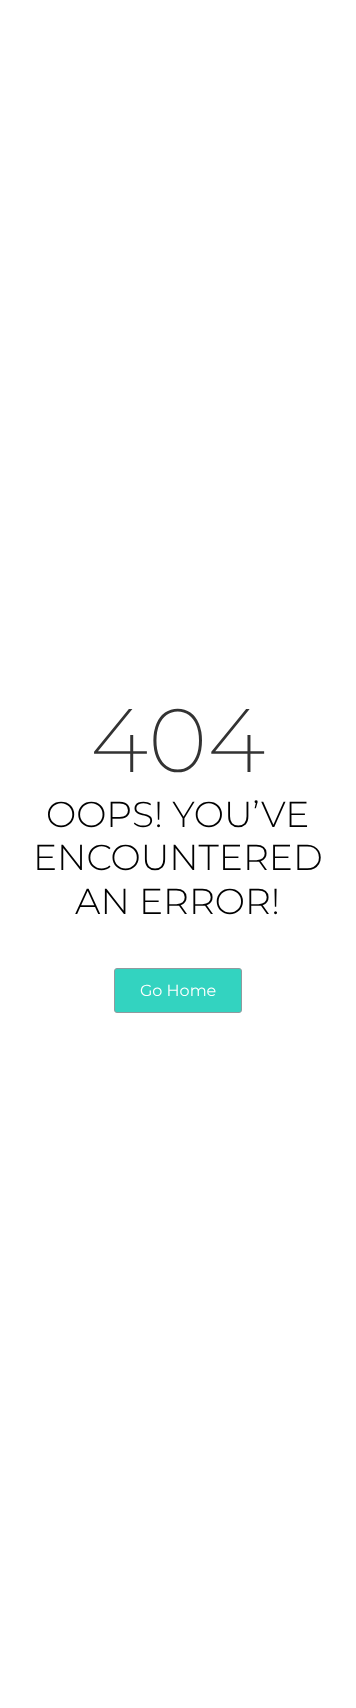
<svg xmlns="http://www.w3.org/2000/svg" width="356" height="1708">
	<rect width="100%" height="100%" fill="#FFFFFF" />
	<text x="90" y="772" font-family="Montserrat" font-size="90" font-weight="200" fill="#333333">404</text>
	<g font-family="Montserrat" font-size="36" font-weight="300" fill="#000000">
		<text x="46" y="827">OOPS! YOU’VE</text>
		<text x="33" y="870">ENCOUNTERED</text>
		<text x="75" y="914">AN ERROR!</text>
	</g>
	<rect x="114.5" y="968.5" width="127" height="44" rx="2.5" fill="#33D3C0" stroke="#909A9E" />
	<text x="140" y="996" font-family="Montserrat" font-size="16" fill="#FFFFFF">Go Home</text>
</svg>
